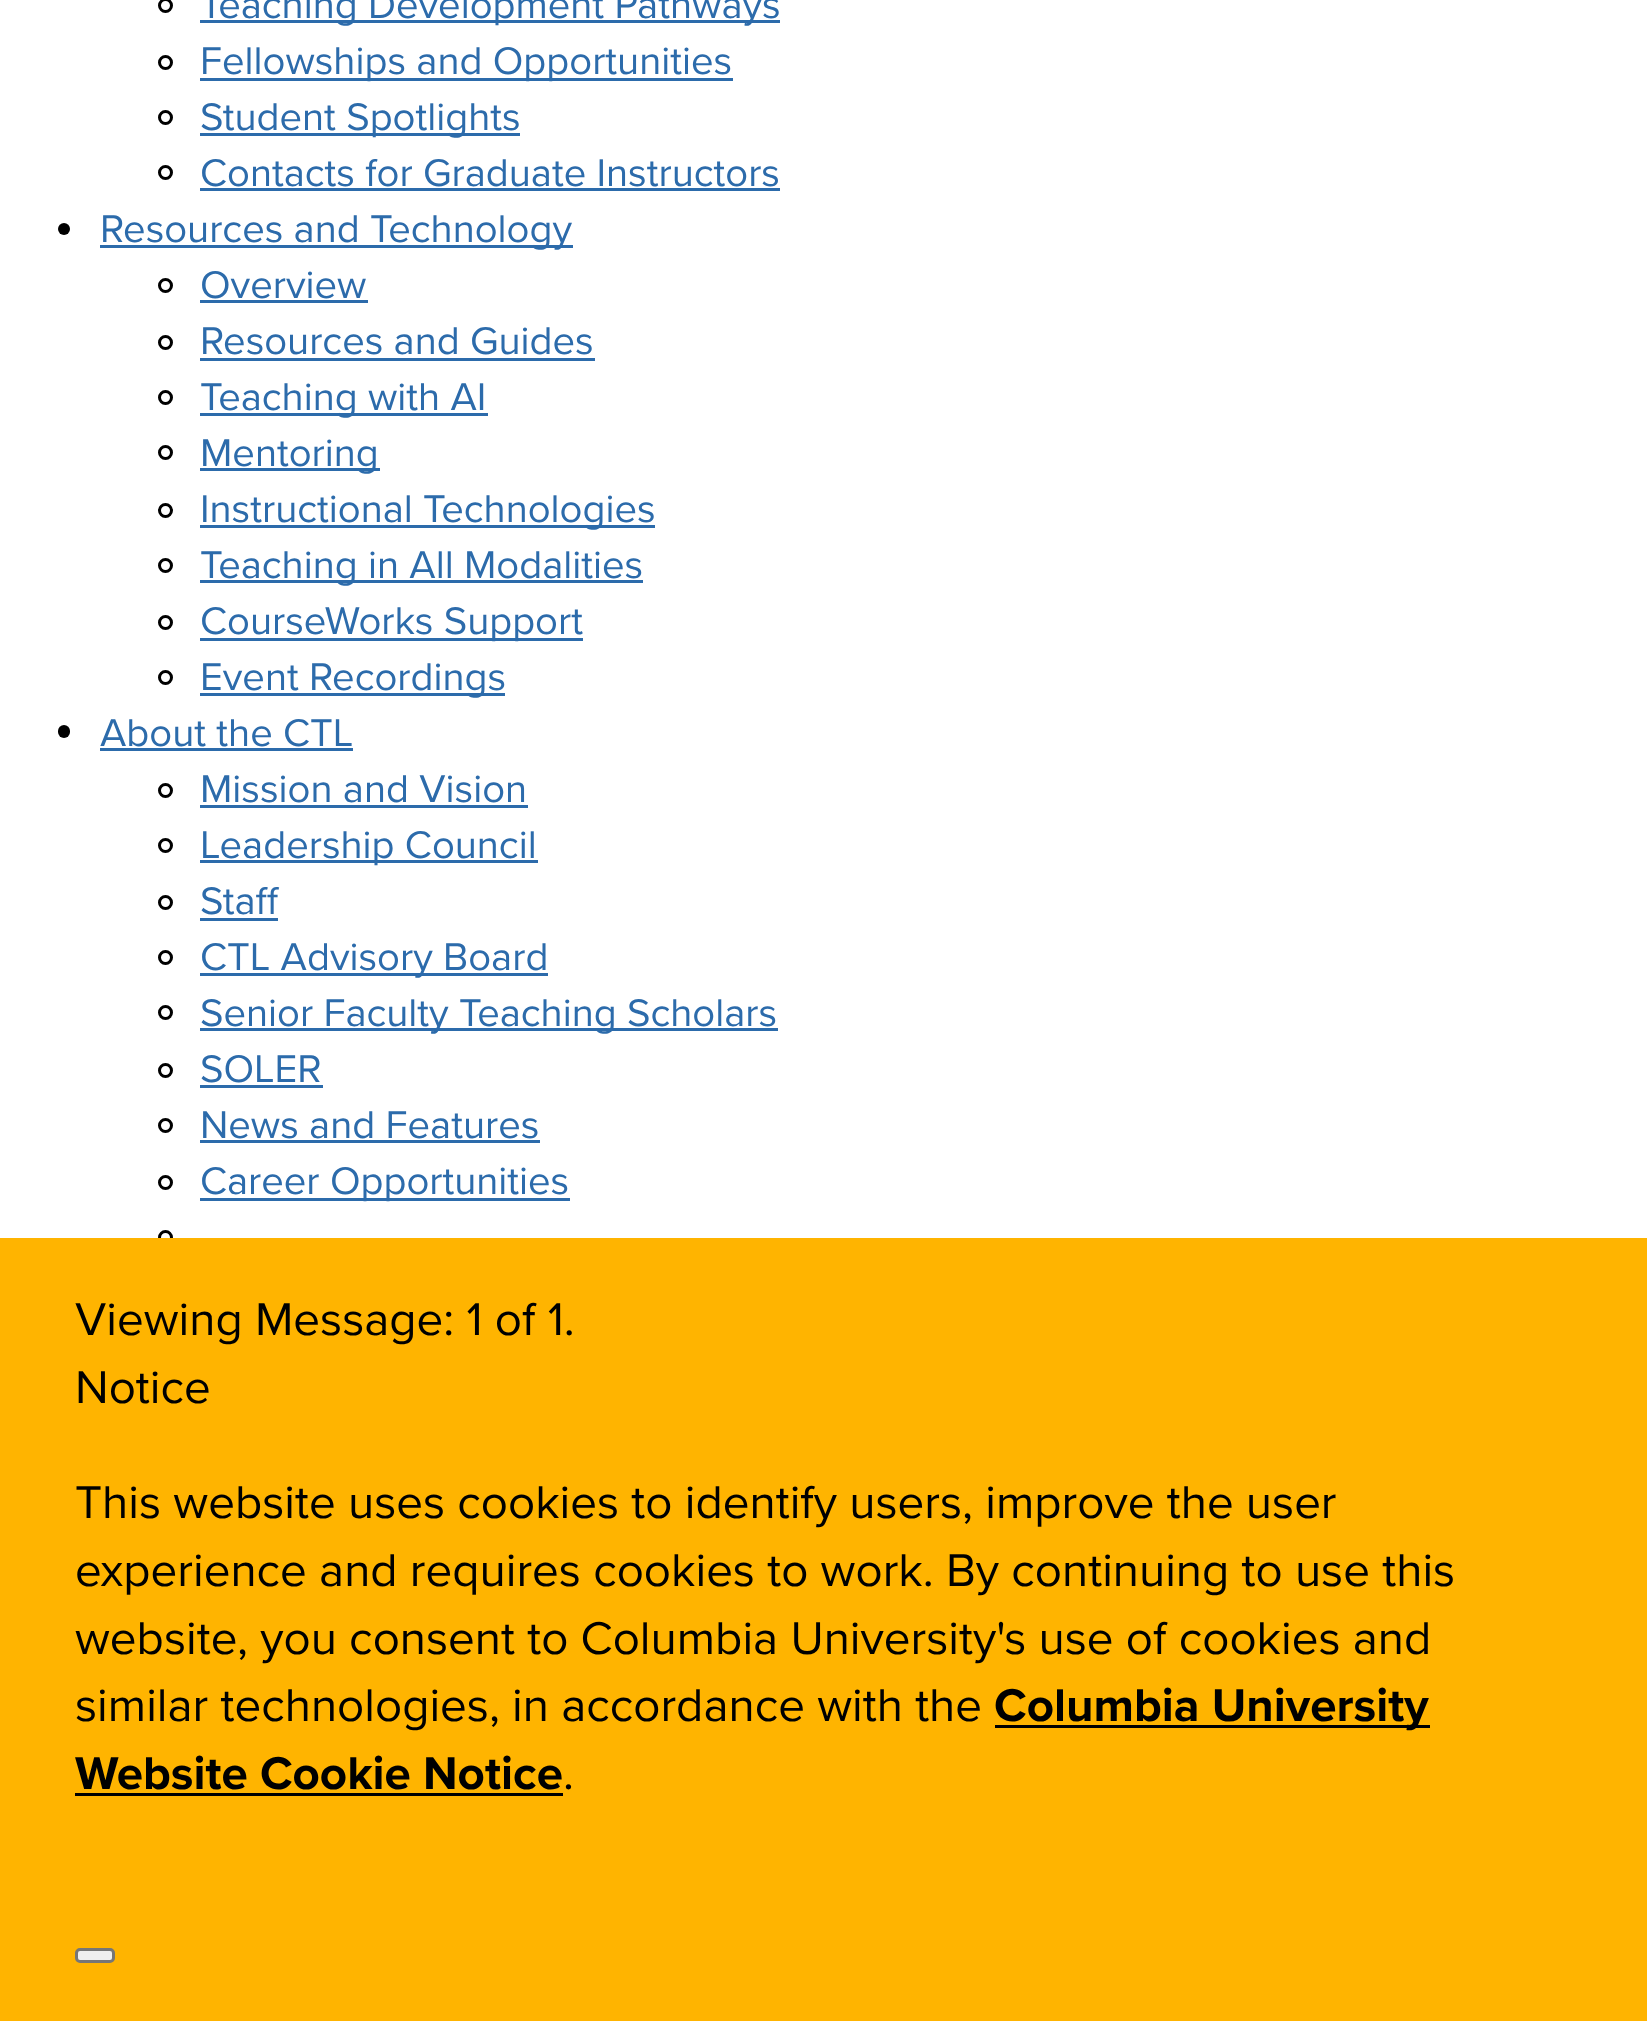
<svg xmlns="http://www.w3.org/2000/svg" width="1647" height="2021">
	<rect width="100%" height="100%" fill="#FFFFFF" />
	<circle cx="165.5" cy="5.5" r="6" fill="none" stroke="#000000" stroke-width="3" />
	<rect x="200" y="20" width="580" height="3" fill="#2C6BAB" />
	<text x="200" y="18" font-family="Proxima Nova" font-size="40" fill="#2C6BAB">Teaching Development Pathways</text>
	<circle cx="165.5" cy="62.5" r="6" fill="none" stroke="#000000" stroke-width="3" />
	<rect x="200" y="78" width="533" height="3" fill="#2C6BAB" />
	<text x="200" y="74" font-family="Proxima Nova" font-size="40" fill="#2C6BAB">Fellowships and Opportunities</text>
	<circle cx="165.5" cy="117.5" r="6" fill="none" stroke="#000000" stroke-width="3" />
	<rect x="200" y="133" width="320" height="3" fill="#2C6BAB" />
	<text x="200" y="130" font-family="Proxima Nova" font-size="40" fill="#2C6BAB">Student Spotlights</text>
	<circle cx="165.5" cy="172.5" r="6" fill="none" stroke="#000000" stroke-width="3" />
	<text x="200" y="186" font-family="Proxima Nova" font-size="40" fill="#2C6BAB">Contacts for Graduate Instructors</text>
	<rect x="200" y="188" width="580" height="3" fill="#2C6BAB" />
	<circle cx="64" cy="229" r="6" fill="#000000" />
	<rect x="100" y="245" width="473" height="3" fill="#2C6BAB" />
	<text x="100" y="242" font-family="Proxima Nova" font-size="40" fill="#2C6BAB">Resources and Technology</text>
	<circle cx="165.5" cy="285.5" r="6" fill="none" stroke="#000000" stroke-width="3" />
	<text x="200" y="298" font-family="Proxima Nova" font-size="40" fill="#2C6BAB">Overview</text>
	<rect x="200" y="300" width="168" height="3" fill="#2C6BAB" />
	<circle cx="165.5" cy="342.5" r="6" fill="none" stroke="#000000" stroke-width="3" />
	<text x="200" y="354" font-family="Proxima Nova" font-size="40" fill="#2C6BAB">Resources and Guides</text>
	<rect x="200" y="358" width="395" height="3" fill="#2C6BAB" />
	<circle cx="165.5" cy="397.5" r="6" fill="none" stroke="#000000" stroke-width="3" />
	<rect x="200" y="413" width="288" height="3" fill="#2C6BAB" />
	<text x="200" y="410" font-family="Proxima Nova" font-size="40" fill="#2C6BAB">Teaching with AI</text>
	<circle cx="165.5" cy="452.5" r="6" fill="none" stroke="#000000" stroke-width="3" />
	<rect x="200" y="468" width="180" height="3" fill="#2C6BAB" />
	<text x="200" y="466" font-family="Proxima Nova" font-size="40" fill="#2C6BAB">Mentoring</text>
	<circle cx="165.5" cy="510.5" r="6" fill="none" stroke="#000000" stroke-width="3" />
	<rect x="200" y="525" width="455" height="3" fill="#2C6BAB" />
	<text x="200" y="522" font-family="Proxima Nova" font-size="40" fill="#2C6BAB">Instructional Technologies</text>
	<circle cx="165.5" cy="565.5" r="6" fill="none" stroke="#000000" stroke-width="3" />
	<rect x="200" y="580" width="443" height="3" fill="#2C6BAB" />
	<text x="200" y="578" font-family="Proxima Nova" font-size="40" fill="#2C6BAB">Teaching in All Modalities</text>
	<circle cx="165.5" cy="622.5" r="6" fill="none" stroke="#000000" stroke-width="3" />
	<rect x="200" y="638" width="383" height="3" fill="#2C6BAB" />
	<text x="200" y="634" font-family="Proxima Nova" font-size="40" fill="#2C6BAB">CourseWorks Support</text>
	<circle cx="165.5" cy="677.5" r="6" fill="none" stroke="#000000" stroke-width="3" />
	<rect x="200" y="693" width="305" height="3" fill="#2C6BAB" />
	<text x="200" y="690" font-family="Proxima Nova" font-size="40" fill="#2C6BAB">Event Recordings</text>
	<rect x="58" y="725" width="12" height="13" rx="6" fill="#000000" />
	<text x="100" y="746" font-family="Proxima Nova" font-size="40" fill="#2C6BAB">About the CTL</text>
	<rect x="100" y="748" width="253" height="3" fill="#2C6BAB" />
	<circle cx="165.5" cy="790.5" r="6" fill="none" stroke="#000000" stroke-width="3" />
	<text x="200" y="802" font-family="Proxima Nova" font-size="40" fill="#2C6BAB">Mission and Vision</text>
	<rect x="200" y="805" width="328" height="3" fill="#2C6BAB" />
	<circle cx="165.5" cy="845.5" r="6" fill="none" stroke="#000000" stroke-width="3" />
	<rect x="200" y="860" width="338" height="3" fill="#2C6BAB" />
	<text x="200" y="858" font-family="Proxima Nova" font-size="40" fill="#2C6BAB">Leadership Council</text>
	<circle cx="165.5" cy="902.5" r="6" fill="none" stroke="#000000" stroke-width="3" />
	<text x="200" y="914" font-family="Proxima Nova" font-size="40" fill="#2C6BAB">Staff</text>
	<rect x="200" y="918" width="78" height="3" fill="#2C6BAB" />
	<circle cx="165.5" cy="957.5" r="6" fill="none" stroke="#000000" stroke-width="3" />
	<rect x="200" y="973" width="348" height="3" fill="#2C6BAB" />
	<text x="200" y="970" font-family="Proxima Nova" font-size="40" fill="#2C6BAB">CTL Advisory Board</text>
	<circle cx="165.5" cy="1012.5" r="6" fill="none" stroke="#000000" stroke-width="3" />
	<rect x="200" y="1028" width="578" height="3" fill="#2C6BAB" />
	<text x="200" y="1026" font-family="Proxima Nova" font-size="40" fill="#2C6BAB">Senior Faculty Teaching Scholars</text>
	<circle cx="165.5" cy="1070.5" r="6" fill="none" stroke="#000000" stroke-width="3" />
	<text x="200" y="1082" font-family="Proxima Nova" font-size="40" fill="#2C6BAB">SOLER</text>
	<rect x="200" y="1085" width="123" height="3" fill="#2C6BAB" />
	<circle cx="165.5" cy="1125.5" r="6" fill="none" stroke="#000000" stroke-width="3" />
	<text x="200" y="1138" font-family="Proxima Nova" font-size="40" fill="#2C6BAB">News and Features</text>
	<rect x="200" y="1140" width="340" height="3" fill="#2C6BAB" />
	<circle cx="165.5" cy="1182.5" r="6" fill="none" stroke="#000000" stroke-width="3" />
	<rect x="200" y="1198" width="370" height="3" fill="#2C6BAB" />
	<text x="200" y="1194" font-family="Proxima Nova" font-size="40" fill="#2C6BAB">Career Opportunities</text>
	<circle cx="165.5" cy="1237.5" r="6" fill="none" stroke="#000000" stroke-width="3" />
	<rect x="0" y="1238" width="1647" height="783" fill="#FFB400" />
	<g font-family="Proxima Nova" font-size="47.5" fill="#000000">
		<text x="75" y="1335">Viewing Message: 1 of 1.</text>
		<text x="75" y="1403">Notice</text>
		<text x="75" y="1518">This website uses cookies to identify users, improve the user</text>
		<text x="75" y="1586">experience and requires cookies to work. By continuing to use this</text>
		<text x="75" y="1654">website, you consent to Columbia University's use of cookies and</text>
		<text x="75" y="1721">similar technologies, in accordance with the</text>
	</g>
	<rect x="995" y="1725" width="435" height="3" fill="#000000" />
	<g font-family="Proxima Nova" font-size="47.5" font-weight="700" fill="#000000">
		<text x="994" y="1721">Columbia University</text>
		<text x="75" y="1789">Website Cookie Notice</text>
	</g>
	<rect x="75" y="1793" width="488" height="3" fill="#000000" />
	<text x="563" y="1789" font-family="Proxima Nova" font-size="47.5" fill="#000000">.</text>
	<rect x="76.5" y="1949.5" width="37" height="12" rx="3.5" fill="#EFEFEF" stroke="#767676" stroke-width="3" />
</svg>
